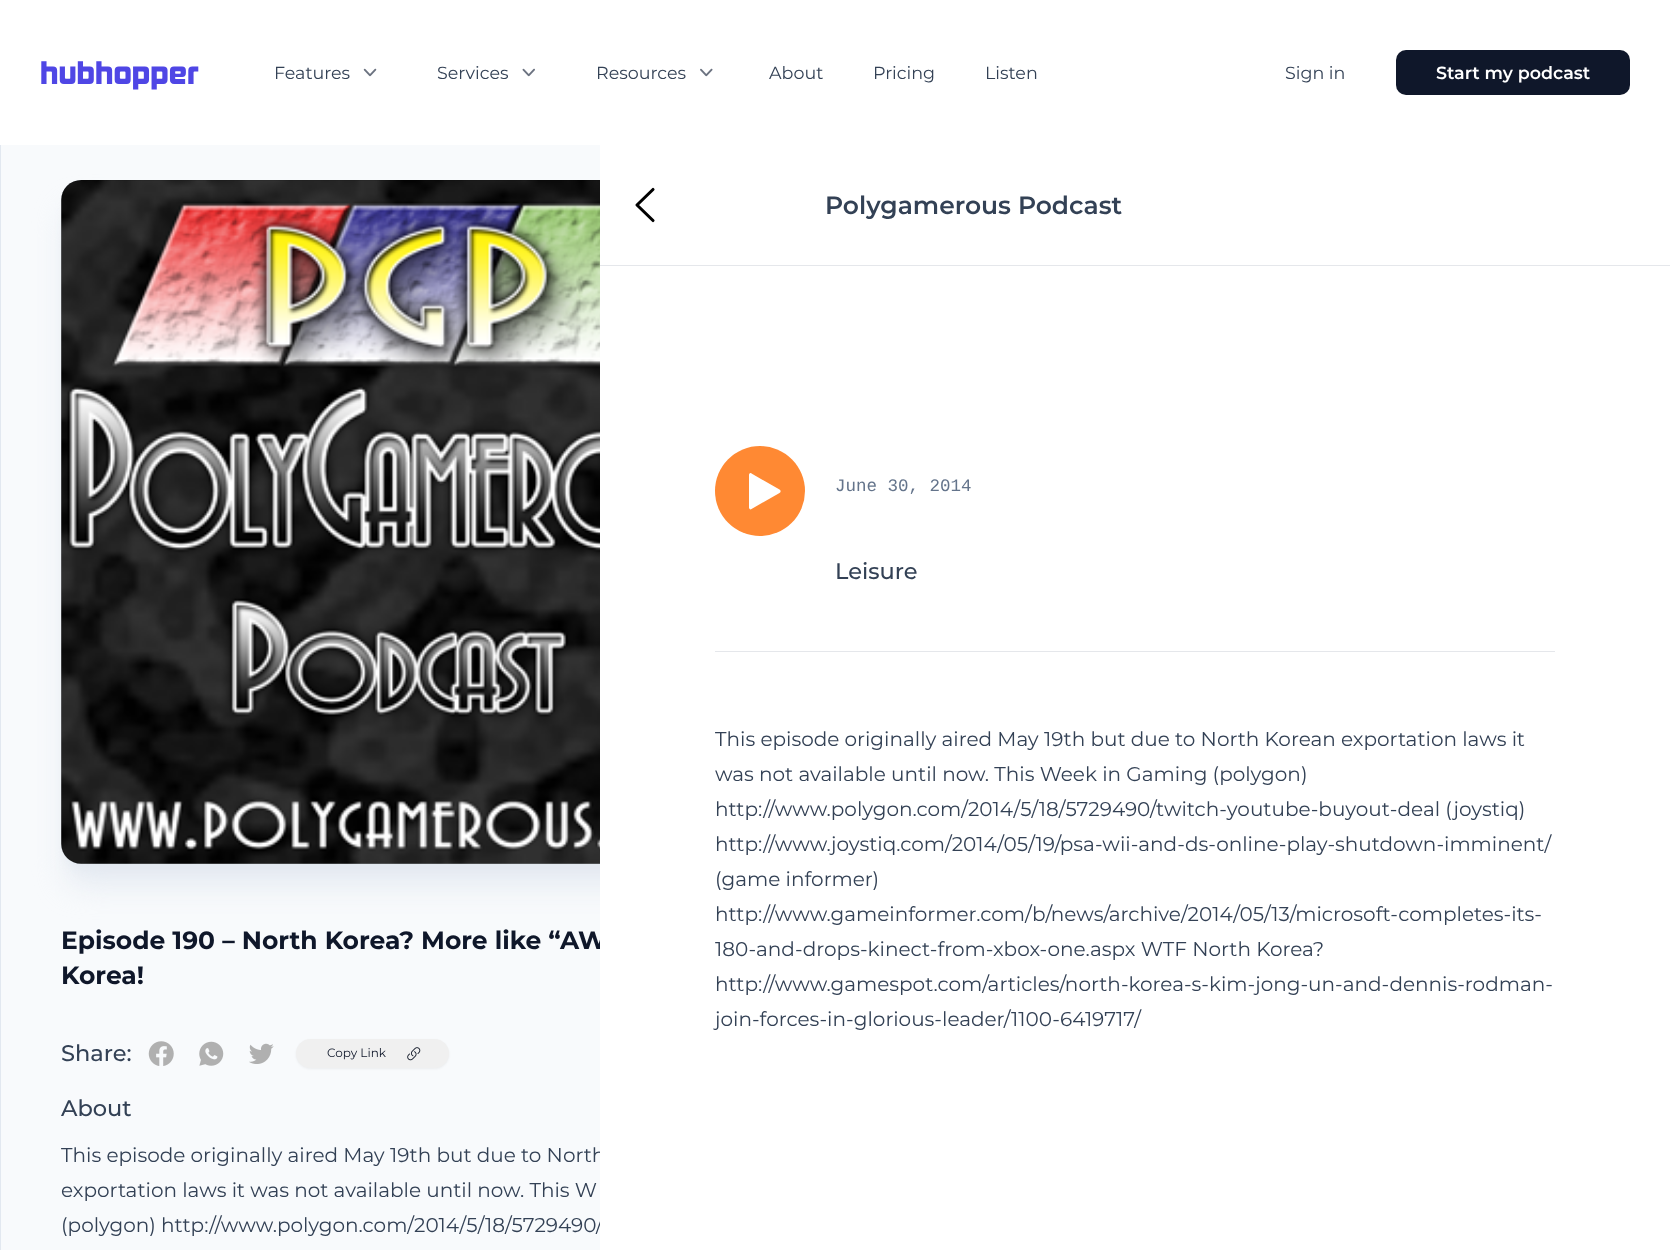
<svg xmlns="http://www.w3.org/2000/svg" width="1670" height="1250">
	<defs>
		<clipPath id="clip1"><rect x="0" y="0" width="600" height="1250" /></clipPath>
		<clipPath id="clip2"><rect x="0" y="0" width="600" height="1250" /></clipPath>
		<clipPath id="clip3"><rect x="61" y="1139" width="539" height="111" /></clipPath>
	</defs>
	<rect width="100%" height="100%" fill="#FFFFFF" />
	<text x="40" y="84" font-family="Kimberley" font-size="30" font-weight="900" fill="#4F46E5">hubhopper</text>
	<text x="274" y="79" font-family="Montserrat" font-size="17.5" fill="#334155">Features</text>
	<image x="363" y="68" width="14" height="9" href="assets/img1.png" />
	<text x="437" y="79" font-family="Montserrat" font-size="17.5" fill="#334155">Services</text>
	<image x="522" y="68" width="13" height="9" href="assets/img2.png" />
	<text x="596" y="79" font-family="Montserrat" font-size="17.5" fill="#334155">Resources</text>
	<image x="700" y="68" width="13" height="9" href="assets/img3.png" />
	<g font-family="Montserrat" font-size="17.5" fill="#334155">
		<text x="769" y="79">About</text>
		<text x="873" y="79">Pricing</text>
		<text x="985" y="79">Listen</text>
		<text x="1285" y="79">Sign in</text>
	</g>
	<rect x="1396" y="50" width="234" height="45" rx="10" fill="#0F172A" />
	<text x="1436" y="79" font-family="Montserrat" font-size="17.5" font-weight="600" fill="#FFFFFF">Start my podcast</text>
	<rect x="1" y="145" width="599" height="1105" fill="#F8FAFC" />
	<g clip-path="url(#clip1)">
		<rect x="69" y="198" width="669" height="668" rx="13" fill="#E2E8F0" filter="blur(6px)" />
		<rect x="68" y="211" width="671" height="672" rx="14" fill="#E2E8F0" filter="blur(15.5px)" />
	</g>
	<path d="M81 180H600V864H81C70 864 61 855 61 844V200C61 189 70 180 81 180Z" fill="#E2E8F0" />
	<image x="61" y="180" width="539" height="684" href="assets/img4.png" />
	<g clip-path="url(#clip2)">
		<rect x="61.5" y="180.5" width="683" height="683" rx="19.5" fill="none" stroke="#000000" stroke-opacity="0.1" />
	</g>
	<rect x="600" y="265" width="1070" height="1" fill="#E5E7EB" />
	<path d="M653 220.5L637 205L653 189.5" fill="none" stroke="#000000" stroke-width="3.1" stroke-linecap="round" stroke-linejoin="round" />
	<text x="825" y="214" font-family="Montserrat" font-size="25" font-weight="600" fill="#334155">Polygamerous Podcast</text>
	<circle cx="760" cy="491" r="45" fill="#FF8933" />
	<path d="M779.5 489.5C781 490.5 781 492 779.5 493L751.5 509C750.5 510 749 509 749 507.5V475C749 473.5 750.5 472.5 751.5 473.5Z" fill="#FFFFFF" />
	<text x="835" y="491" font-family="Liberation Mono" font-size="17.5" fill="#64748B">June 30, 2014</text>
	<text x="835" y="579" font-family="Montserrat" font-size="22.5" font-weight="500" fill="#334155">Leisure</text>
	<rect x="715" y="651" width="840" height="1" fill="#E5E7EB" />
	<g font-family="Montserrat" font-size="20" fill="#334155">
		<text x="715" y="746">This episode originally aired May 19th but due to North Korean exportation laws it</text>
		<text x="715" y="781">was not available until now. This Week in Gaming (polygon)</text>
		<text x="715" y="816">http://www.polygon.com/2014/5/18/5729490/twitch-youtube-buyout-deal (joystiq)</text>
		<text x="715" y="851">http://www.joystiq.com/2014/05/19/psa-wii-and-ds-online-play-shutdown-imminent/</text>
		<text x="715" y="886">(game informer)</text>
		<text x="715" y="921">http://www.gameinformer.com/b/news/archive/2014/05/13/microsoft-completes-its-</text>
		<text x="715" y="956">180-and-drops-kinect-from-xbox-one.aspx WTF North Korea?</text>
		<text x="715" y="991">http://www.gamespot.com/articles/north-korea-s-kim-jong-un-and-dennis-rodman-</text>
		<text x="715" y="1026">join-forces-in-glorious-leader/1100-6419717/</text>
	</g>
	<rect x="0" y="145" width="1" height="1105" fill="#E2E8F0" />
	<g clip-path="url(#clip2)">
		<text x="61" y="949" font-family="Montserrat" font-size="25" font-weight="700" fill="#0F172A">Episode 190 – North Korea? More like “AW</text>
	</g>
	<text x="61" y="984" font-family="Montserrat" font-size="25" font-weight="700" fill="#0F172A">Korea!</text>
	<text x="61" y="1061" font-family="Montserrat" font-size="22.5" font-weight="500" fill="#334155">Share:</text>
	<image x="148" y="1041" width="26" height="25" href="assets/img5.png" />
	<image x="199" y="1041" width="25" height="25" href="assets/img6.png" />
	<image x="249" y="1043" width="25" height="21" href="assets/img7.png" />
	<rect x="296" y="1040" width="153" height="29" rx="14.5" fill="#000000" fill-opacity="0.05" filter="blur(1px)" />
	<rect x="296" y="1039" width="153" height="29" rx="14.5" fill="#F0F0F0" />
	<text x="327" y="1057" font-family="Montserrat" font-size="12" fill="#0F172A">Copy Link</text>
	<image x="407" y="1047" width="14" height="14" href="assets/img8.png" />
	<text x="61" y="1116" font-family="Montserrat" font-size="22.5" font-weight="500" fill="#334155">About</text>
	<g clip-path="url(#clip3)">
		<text x="61" y="1162" font-family="Montserrat" font-size="20" fill="#334155">This episode originally aired May 19th but due to North</text>
	</g>
	<text x="61" y="1197" font-family="Montserrat" font-size="20" fill="#334155">exportation laws it was not available until now. This W</text>
	<g clip-path="url(#clip3)">
		<text x="61" y="1232" font-family="Montserrat" font-size="20" fill="#334155">(polygon) http://www.polygon.com/2014/5/18/5729490/</text>
	</g>
</svg>
